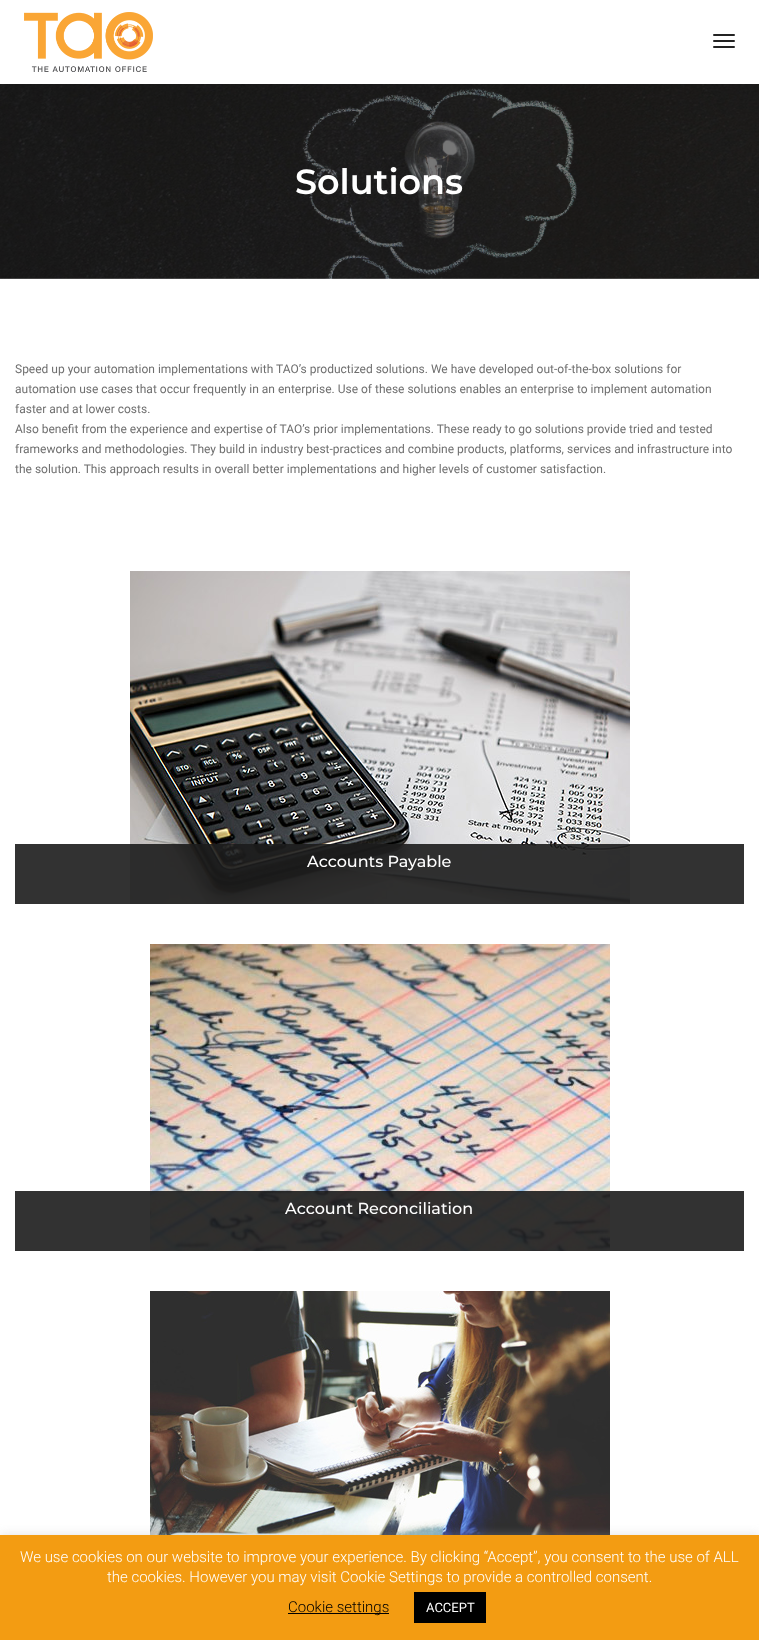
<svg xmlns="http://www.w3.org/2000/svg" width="759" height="1640">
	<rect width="100%" height="100%" fill="#FFFFFF" />
	<image x="24" y="12" width="129" height="60" href="assets/img1.png" />
	<rect x="713" y="34" width="22" height="2" rx="1" fill="#232323" />
	<rect x="713" y="40" width="22" height="2" rx="1" fill="#232323" />
	<rect x="713" y="46" width="22" height="2" rx="1" fill="#232323" />
	<image x="0" y="84" width="759" height="195" href="assets/img2.png" />
	<text x="295" y="194" font-family="Montserrat" font-size="35" font-weight="600" fill="#FFFFFF">Solutions</text>
	<g font-family="Roboto" font-size="12" fill="#6F6F6F">
		<text x="15" y="373">Speed up your automation implementations with TAO’s productized solutions. We have developed out-of-the-box solutions for</text>
		<text x="15" y="393">automation use cases that occur frequently in an enterprise. Use of these solutions enables an enterprise to implement automation</text>
		<text x="15" y="413">faster and at lower costs.</text>
		<text x="15" y="433">Also benefit from the experience and expertise of TAO’s prior implementations. These ready to go solutions provide tried and tested</text>
		<text x="15" y="453">frameworks and methodologies. They build in industry best-practices and combine products, platforms, services and infrastructure into</text>
		<text x="15" y="473">the solution. This approach results in overall better implementations and higher levels of customer satisfaction.</text>
	</g>
	<image x="130" y="571" width="500" height="333" href="assets/img3.png" />
	<rect x="15" y="844" width="729" height="60" fill="#1C1C1C" fill-opacity="0.9" />
	<text x="307" y="867" font-family="Montserrat" font-size="16" font-weight="500" fill="#FFFFFF">Accounts Payable</text>
	<image x="150" y="944" width="460" height="307" href="assets/img4.png" />
	<rect x="15" y="1191" width="729" height="60" fill="#1C1C1C" fill-opacity="0.9" />
	<text x="285" y="1214" font-family="Montserrat" font-size="16" font-weight="500" fill="#FFFFFF">Account Reconciliation</text>
	<image x="150" y="1291" width="460" height="244" href="assets/img5.png" />
	<rect x="0" y="1534" width="759" height="105" fill="#ACABAB" fill-opacity="0.3" filter="blur(5px)" />
	<rect x="0" y="1535" width="759" height="105" fill="#F39C12" />
	<g font-family="Roboto" font-size="15" font-weight="300" fill="#FFFFFF">
		<text x="20" y="1562">We use cookies on our website to improve your experience. By clicking “Accept”, you consent to the use of ALL</text>
		<text x="107" y="1582">the cookies. However you may visit Cookie Settings to provide a controlled consent.</text>
	</g>
	<rect x="288" y="1613" width="101" height="1" fill="#000000" />
	<text x="288" y="1612" font-family="Roboto" font-size="15" font-weight="300" fill="#000000">Cookie settings</text>
	<rect x="414" y="1592" width="72" height="31" fill="#000000" />
	<text x="426" y="1612" font-family="Roboto" font-size="13" fill="#FFFFFF">ACCEPT</text>
</svg>
